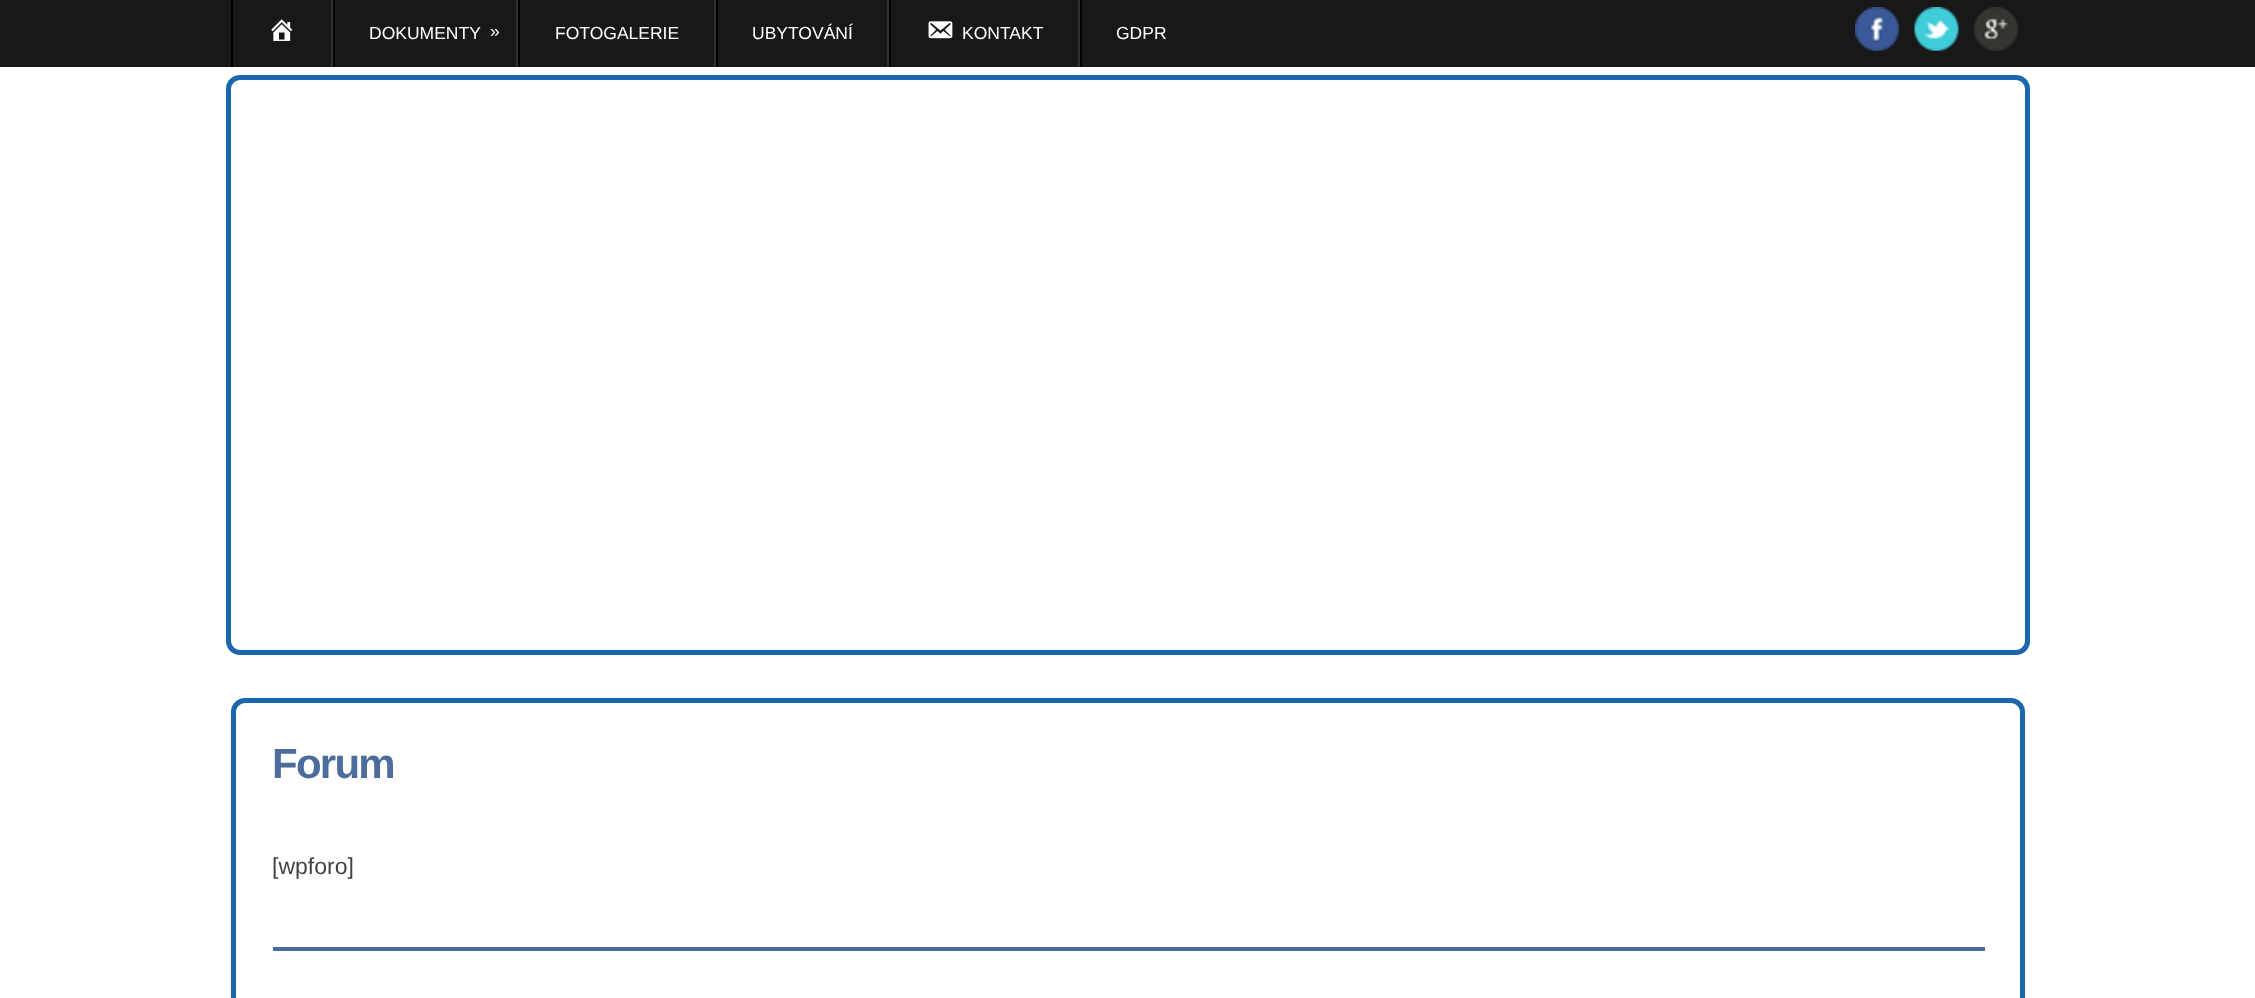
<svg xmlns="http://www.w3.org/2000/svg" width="2255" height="998">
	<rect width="100%" height="100%" fill="#FFFFFF" />
	<rect x="0" y="0" width="2255" height="67" fill="#181818" />
	<rect x="331" y="0" width="2" height="67" fill="#303030" />
	<rect x="231" y="0" width="2" height="67" fill="#000000" />
	<image x="271" y="19" width="22" height="22" href="assets/img1.png" />
	<rect x="516" y="0" width="2" height="67" fill="#303030" />
	<rect x="333" y="0" width="2" height="67" fill="#000000" />
	<g font-family="Liberation Sans" font-size="17.5" fill="#FFFFFF">
		<text x="369" y="39">DOKUMENTY</text>
		<text x="490" y="37">»</text>
	</g>
	<rect x="714" y="0" width="2" height="67" fill="#303030" />
	<rect x="518" y="0" width="2" height="67" fill="#000000" />
	<text x="555" y="39" font-family="Liberation Sans" font-size="17.5" fill="#FFFFFF">FOTOGALERIE</text>
	<rect x="887" y="0" width="2" height="67" fill="#303030" />
	<rect x="716" y="0" width="2" height="67" fill="#000000" />
	<text x="752" y="39" font-family="Liberation Sans" font-size="17.5" fill="#FFFFFF">UBYTOVÁNÍ</text>
	<rect x="1078" y="0" width="2" height="67" fill="#303030" />
	<rect x="889" y="0" width="2" height="67" fill="#000000" />
	<image x="928" y="21" width="25" height="18" href="assets/img2.png" />
	<text x="962" y="39" font-family="Liberation Sans" font-size="17.5" fill="#FFFFFF">KONTAKT</text>
	<rect x="1080" y="0" width="2" height="67" fill="#000000" />
	<text x="1116" y="39" font-family="Liberation Sans" font-size="17.5" fill="#FFFFFF">GDPR</text>
	<image x="1855" y="7" width="45" height="44" href="assets/img3.png" />
	<image x="1914" y="7" width="45" height="44" href="assets/img4.png" />
	<image x="1974" y="7" width="44" height="44" href="assets/img5.png" />
	<rect x="228.5" y="77.5" width="1799" height="575" rx="11.5" fill="none" stroke="#1A67AE" stroke-width="5" />
	<rect x="233.5" y="700.5" width="1789" height="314" rx="11.5" fill="none" stroke="#1A67AE" stroke-width="5" />
	<text x="272" y="778" font-family="Liberation Sans" font-size="42" font-weight="700" letter-spacing="-1.75" fill="#4C6C9E">Forum</text>
	<rect x="273" y="947" width="1712" height="4" fill="#4C6C9E" />
	<text x="272" y="874" font-family="Liberation Sans" font-size="23" fill="#434343">[wpforo]</text>
</svg>
